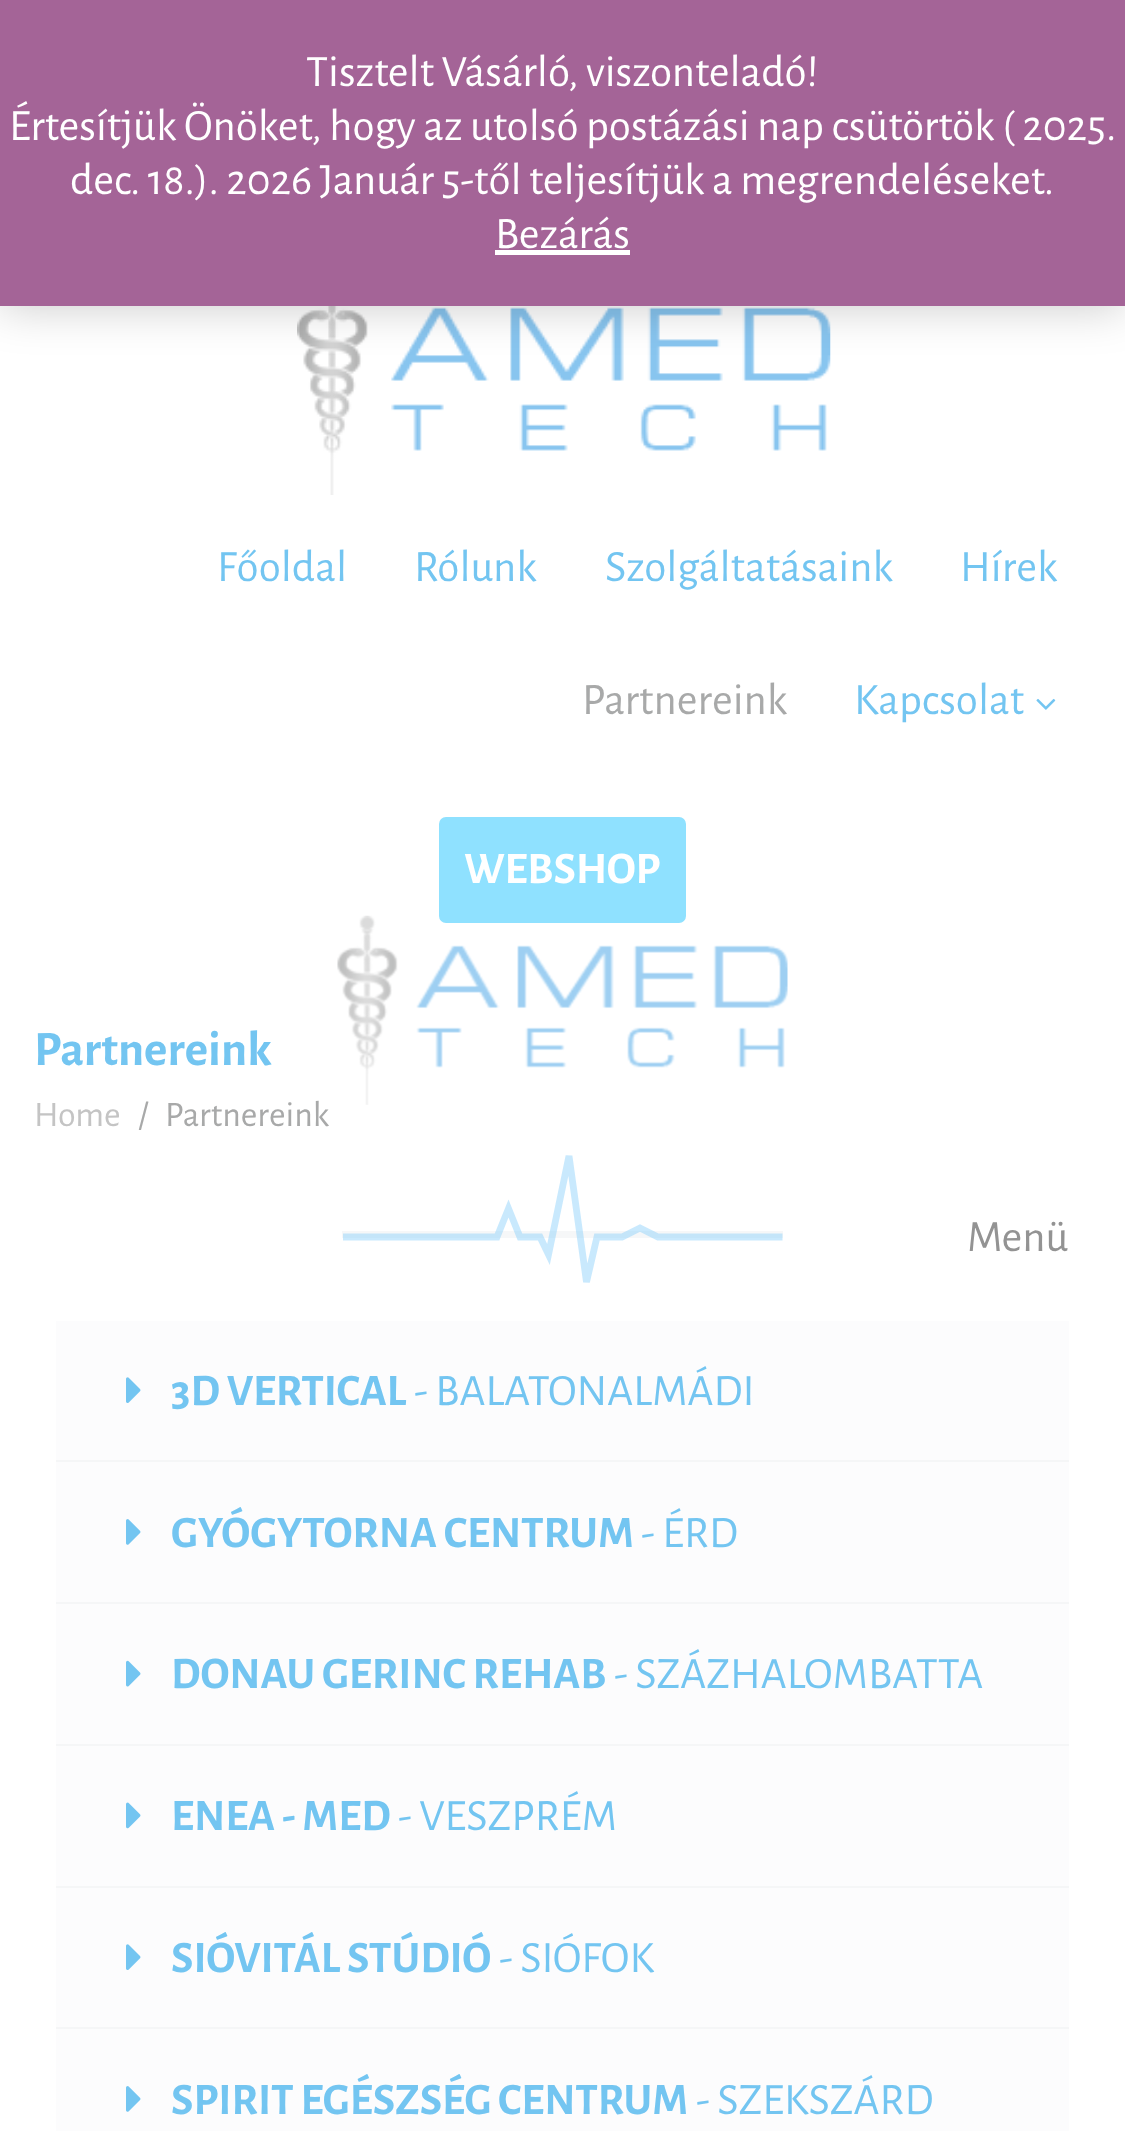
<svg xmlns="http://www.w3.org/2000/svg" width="1125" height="2131">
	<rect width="100%" height="100%" fill="#FFFFFF" />
	<image x="297" y="306" width="534" height="189" href="assets/img1.png" />
	<rect x="0" y="2" width="1125" height="306" fill="#000000" fill-opacity="0.2" filter="blur(22.5px)" />
	<rect x="0" y="0" width="1125" height="306" fill="#A46497" />
	<g font-family="Alegreya Sans" font-size="45" fill="#FFFFFF">
		<text x="306" y="86">Tisztelt Vásárló, viszonteladó!</text>
		<text x="9" y="140">Értesítjük Önöket, hogy az utolsó postázási nap csütörtök ( 2025.</text>
		<text x="70" y="194">dec. 18.). 2026 Január 5-től teljesítjük a megrendeléseket.</text>
		<text x="495" y="248">Bezárás</text>
	</g>
	<rect x="495" y="250" width="135" height="5" fill="#FFFFFF" />
	<g font-family="Alegreya Sans" font-size="45" fill="#73C5F1">
		<text x="217" y="581">Főoldal</text>
		<text x="414" y="581">Rólunk</text>
		<text x="605" y="581">Szolgáltatásaink</text>
		<text x="960" y="581">Hírek</text>
	</g>
	<text x="582" y="714" font-family="Alegreya Sans" font-size="45" fill="#A8A9A9">Partnereink</text>
	<text x="854" y="714" font-family="Alegreya Sans" font-size="45" fill="#73C5F1">Kapcsolat</text>
	<image x="1036" y="698" width="20" height="12" href="assets/img2.png" />
	<rect x="440" y="818" width="245" height="104" rx="6" fill="#8FE1FF" stroke="#8FE1FF" stroke-width="2" />
	<text x="464" y="883" font-family="Alegreya Sans" font-size="45" font-weight="700" fill="#FFFFFF">WEBSHOP</text>
	<text x="34" y="1065" font-family="Alegreya Sans" font-size="49.5" font-weight="700" fill="#73C5F1">Partnereink</text>
	<text x="34" y="1126" font-family="Alegreya Sans" font-size="36" fill="#C4C4C4">Home</text>
	<g font-family="Alegreya Sans" font-size="36" fill="#A8A9A9">
		<text x="138" y="1126">/</text>
		<text x="165" y="1126">Partnereink</text>
	</g>
	<text x="967" y="1251" font-family="Alegreya Sans" font-size="45" fill="#939393">Menü</text>
	<rect x="56" y="1321" width="1013" height="281" fill="#FCFCFD" />
	<rect x="56" y="1460" width="1013" height="2" fill="#F5F6F7" />
	<image x="126" y="1377" width="15" height="26" href="assets/img3.png" />
	<text x="171" y="1405" font-family="Alegreya Sans" font-size="45" font-weight="700" fill="#73C5F1">3D VERTICAL</text>
	<text x="414" y="1405" font-family="Alegreya Sans" font-size="45" fill="#73C5F1">- BALATONALMÁDI</text>
	<rect x="56" y="1602" width="1013" height="2" fill="#F5F6F7" />
	<image x="126" y="1519" width="15" height="26" href="assets/img4.png" />
	<text x="171" y="1547" font-family="Alegreya Sans" font-size="45" font-weight="700" fill="#73C5F1">GYÓGYTORNA CENTRUM</text>
	<text x="641" y="1547" font-family="Alegreya Sans" font-size="45" fill="#73C5F1">- ÉRD</text>
	<rect x="56" y="1604" width="1013" height="140" fill="#FCFCFD" />
	<rect x="56" y="1744" width="1013" height="2" fill="#F5F6F7" />
	<image x="126" y="1660" width="15" height="27" href="assets/img5.png" />
	<text x="171" y="1688" font-family="Alegreya Sans" font-size="45" font-weight="700" fill="#73C5F1">DONAU GERINC REHAB</text>
	<text x="614" y="1688" font-family="Alegreya Sans" font-size="45" fill="#73C5F1">- SZÁZHALOMBATTA</text>
	<rect x="56" y="1746" width="1013" height="140" fill="#FCFCFD" />
	<rect x="56" y="1886" width="1013" height="2" fill="#F5F6F7" />
	<image x="126" y="1802" width="15" height="27" href="assets/img6.png" />
	<text x="171" y="1830" font-family="Alegreya Sans" font-size="45" font-weight="700" fill="#73C5F1">ENEA - MED</text>
	<text x="398" y="1830" font-family="Alegreya Sans" font-size="45" fill="#73C5F1">- VESZPRÉM</text>
	<rect x="56" y="1888" width="1013" height="243" fill="#FCFCFD" />
	<rect x="56" y="2027" width="1013" height="2" fill="#F5F6F7" />
	<image x="126" y="1944" width="15" height="26" href="assets/img3.png" />
	<text x="171" y="1972" font-family="Alegreya Sans" font-size="45" font-weight="700" fill="#73C5F1">SIÓVITÁL STÚDIÓ</text>
	<text x="499" y="1972" font-family="Alegreya Sans" font-size="45" fill="#73C5F1">- SIÓFOK</text>
	<image x="126" y="2086" width="15" height="26" href="assets/img4.png" />
	<text x="171" y="2114" font-family="Alegreya Sans" font-size="45" font-weight="700" fill="#73C5F1">SPIRIT EGÉSZSÉG CENTRUM</text>
	<text x="696" y="2114" font-family="Alegreya Sans" font-size="45" fill="#73C5F1">- SZEKSZÁRD</text>
	<image x="337" y="915" width="451" height="190" href="assets/img7.png" />
	<rect x="342" y="1231" width="441" height="7" fill="#F6F7F8" />
	<path d="M343 1237H497L508.5 1208.5L520 1237H540L548.5 1254.5L569 1156L586.5 1282L597 1237H622L640 1228L658 1237H782.5" fill="none" stroke="#87CEFA" stroke-opacity="0.45" stroke-width="6.8" />
</svg>
